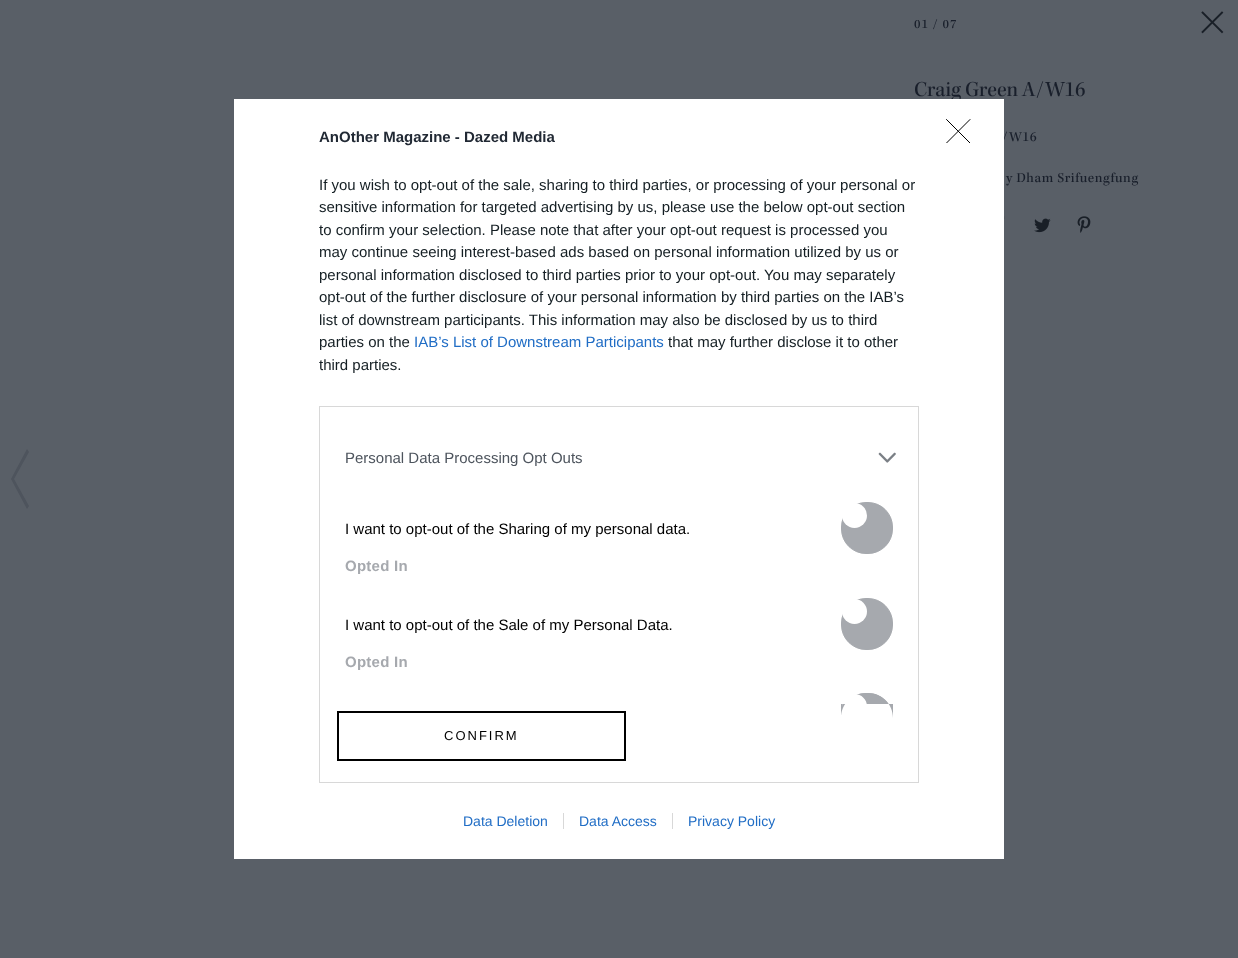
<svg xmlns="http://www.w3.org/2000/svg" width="1238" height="958">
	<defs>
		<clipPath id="clip1"><rect x="330" y="417" width="578" height="287" /></clipPath>
		<clipPath id="clip2"><rect x="946" y="119" width="25" height="24" /></clipPath>
	</defs>
	<rect width="100%" height="100%" fill="#595F67" />
	<text x="914" y="28" font-family="'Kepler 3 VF'" font-size="13" font-weight="500" letter-spacing="1" fill="#191F2B">01 / 07</text>
	<text x="914" y="96" font-family="'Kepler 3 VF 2'" font-size="22" font-weight="500" fill="#191F2B">Craig Green A/W16</text>
	<image x="1201" y="11" width="23" height="23" href="assets/img1.png" />
	<g font-family="'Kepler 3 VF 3'" font-size="14" font-weight="500" letter-spacing="0.6" fill="#191F2B">
		<text x="1002" y="141">/W16</text>
		<text x="1006" y="182">y Dham Srifuengfung</text>
	</g>
	<image x="1004" y="216" width="1" height="3" href="assets/img2.png" />
	<image x="1034" y="218" width="17" height="15" href="assets/img3.png" />
	<image x="1077" y="216" width="14" height="17" href="assets/img4.png" />
	<path d="M14 479L29 506L27 509L11 479L27 449L29 452Z" fill="#4E545D" />
	<rect x="234" y="99" width="770" height="760" fill="#FFFFFF" />
	<text x="319" y="142" font-family="Liberation Sans" font-size="15" font-weight="700" fill="#212934">AnOther Magazine - Dazed Media</text>
	<g font-family="Liberation Sans" font-size="15" fill="#141E23">
		<text x="319" y="190">If you wish to opt-out of the sale, sharing to third parties, or processing of your personal or</text>
		<text x="319" y="212">sensitive information for targeted advertising by us, please use the below opt-out section</text>
		<text x="319" y="235">to confirm your selection. Please note that after your opt-out request is processed you</text>
		<text x="319" y="257">may continue seeing interest-based ads based on personal information utilized by us or</text>
		<text x="319" y="280">personal information disclosed to third parties prior to your opt-out. You may separately</text>
		<text x="319" y="302">opt-out of the further disclosure of your personal information by third parties on the IAB’s</text>
		<text x="319" y="325">list of downstream participants. This information may also be disclosed by us to third</text>
		<text x="319" y="347">parties on the</text>
	</g>
	<text x="414" y="347" font-family="Liberation Sans" font-size="15" fill="#206DC5">IAB’s List of Downstream Participants</text>
	<g font-family="Liberation Sans" font-size="15" fill="#141E23">
		<text x="668" y="347">that may further disclose it to other</text>
		<text x="319" y="370">third parties.</text>
	</g>
	<rect x="319.5" y="406.5" width="599" height="376" fill="none" stroke="#D8D8D8" />
	<text x="345" y="463" font-family="Liberation Sans" font-size="15" fill="#4D545D">Personal Data Processing Opt Outs</text>
	<image x="878" y="452" width="18" height="11" href="assets/img5.png" />
	<text x="345" y="534" font-family="Liberation Sans" font-size="15" fill="#000000">I want to opt-out of the Sharing of my personal data.</text>
	<rect x="841.5" y="502.5" width="51" height="51" rx="24.5" fill="#A6A9AE" stroke="#A6A9AE" />
	<circle cx="854.5" cy="515.5" r="12.5" fill="#FFFFFF" />
	<text x="345" y="571" font-family="Liberation Sans" font-size="15" font-weight="700" letter-spacing="0.25" fill="#A6A9AE">Opted In</text>
	<text x="345" y="630" font-family="Liberation Sans" font-size="15" fill="#000000">I want to opt-out of the Sale of my Personal Data.</text>
	<rect x="841.5" y="598.5" width="51" height="51" rx="24.5" fill="#A6A9AE" stroke="#A6A9AE" />
	<circle cx="854.5" cy="611.5" r="12.5" fill="#FFFFFF" />
	<text x="345" y="667" font-family="Liberation Sans" font-size="15" font-weight="700" letter-spacing="0.25" fill="#A6A9AE">Opted In</text>
	<path d="M866 693H868C882 693 893 704 893 718V704H841V718C841 704 852 693 866 693Z" fill="#A6A9AE" />
	<g clip-path="url(#clip1)">
		<rect x="841.5" y="693.5" width="51" height="51" rx="24.5" fill="none" stroke="#A6A9AE" />
	</g>
	<path d="M854.5 694C861.5 694 867 699.5 867 706.5V704H842V706.5C842 699.5 847.5 694 854.5 694Z" fill="#FFFFFF" />
	<rect x="338" y="712" width="287" height="48" fill="none" stroke="#000000" stroke-width="2" />
	<text x="444" y="740" font-family="Liberation Sans" font-size="13" letter-spacing="2" fill="#000000">CONFIRM</text>
	<g clip-path="url(#clip2)">
		<path d="M946.5 119.5L970 143M970 119.5L946.5 143" fill="none" stroke="#000000" stroke-linecap="round" stroke-linejoin="round" />
	</g>
	<g font-family="Liberation Sans" font-size="14" fill="#206DC5">
		<text x="463" y="826">Data Deletion</text>
		<text x="579" y="826">Data Access</text>
	</g>
	<rect x="563" y="813" width="1" height="16" fill="#D8D8D8" />
	<text x="688" y="826" font-family="Liberation Sans" font-size="14" fill="#206DC5">Privacy Policy</text>
	<rect x="672" y="813" width="1" height="16" fill="#D8D8D8" />
</svg>
